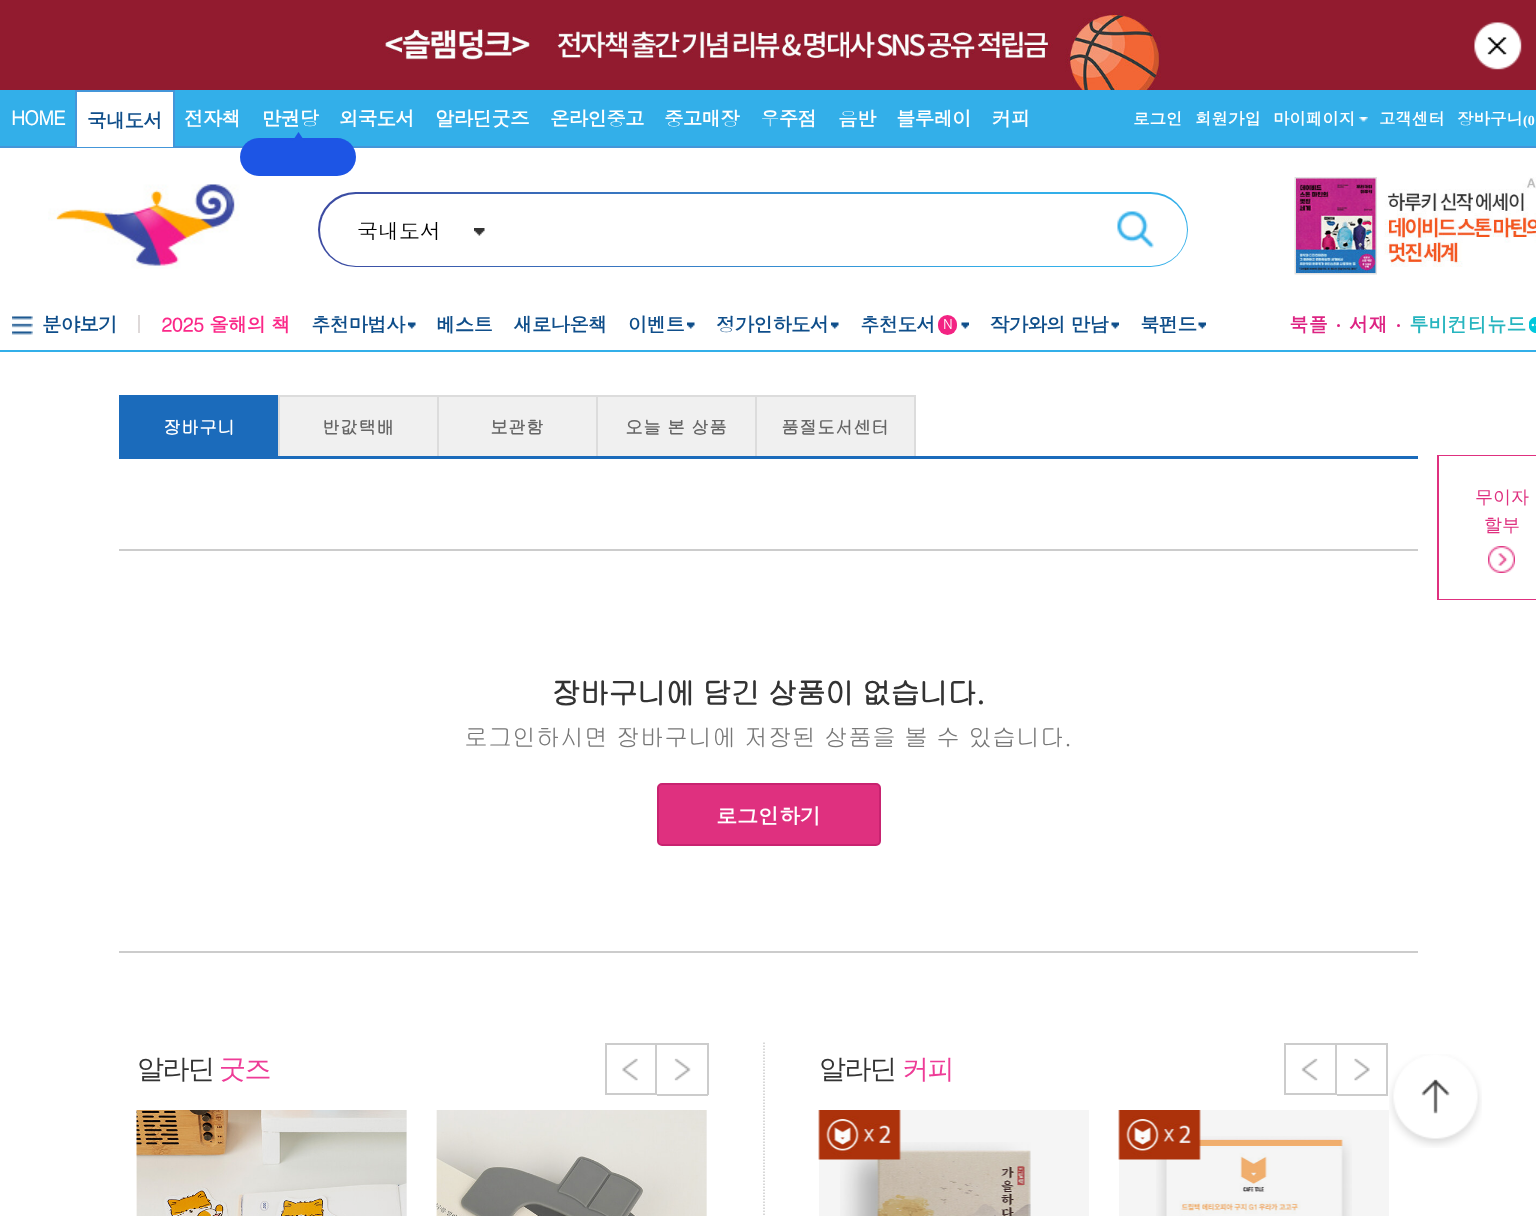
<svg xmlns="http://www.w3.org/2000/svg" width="1536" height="1216">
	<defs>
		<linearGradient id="g1" gradientUnits="userSpaceOnUse" x1="318" y1="230" x2="1188" y2="229"><stop offset="0" stop-color="#3C4AA1" /><stop offset="0.8" stop-color="#33AFE9" /></linearGradient>
	</defs>
	<rect width="100%" height="100%" fill="#FFFFFF" />
	<rect x="1119" y="1110" width="270" height="106" fill="#F5F5F5" />
	<rect x="819" y="1110" width="270" height="106" fill="#F5F5F5" />
	<rect x="706" y="1110" width="1" height="106" fill="#F5F5F5" />
	<rect x="406" y="1110" width="1" height="106" fill="#F5F5F5" />
	<rect x="0" y="0" width="1536" height="90" fill="#921B2F" />
	<image x="381" y="12" width="780" height="78" href="assets/img1.png" />
	<image x="1474" y="22" width="48" height="48" href="assets/img2.png" />
	<rect x="0" y="350" width="1536" height="2" fill="#33AFE9" />
	<rect x="0" y="90" width="1536" height="56" fill="#33AFE9" />
	<rect x="0" y="146" width="1536" height="2" fill="#4496D9" />
	<text x="11" y="125" font-family="Dotum" font-size="19.5" font-weight="700" letter-spacing="-0.75" fill="#FFFFFF">HOME</text>
	<rect x="77" y="92" width="96" height="55" fill="#FFFFFF" />
	<rect x="75" y="90" width="99" height="2" fill="#4496D9" />
	<rect x="173" y="90" width="2" height="57" fill="#4496D9" />
	<rect x="75" y="90" width="2" height="57" fill="#4496D9" />
	<text x="87" y="128" font-family="Dotum" font-size="19.5" font-weight="700" letter-spacing="-0.75" fill="#0F4E8A">국내도서</text>
	<g font-family="Dotum" font-size="19.5" font-weight="700" letter-spacing="-0.75" fill="#FFFFFF">
		<text x="184" y="126">전자책</text>
		<text x="262" y="126">만권당</text>
	</g>
	<rect x="240" y="138" width="116" height="38" rx="19" fill="#1D55E5" />
	<path d="M304.5 141H292.5L298.5 132Z" fill="#1D55E5" />
	<g font-family="Dotum" font-size="19.5" font-weight="700" letter-spacing="-0.75" fill="#FFFFFF">
		<text x="339" y="126">외국도서</text>
		<text x="435" y="126">알라딘굿즈</text>
		<text x="550" y="126">온라인중고</text>
		<text x="664" y="126">중고매장</text>
		<text x="760" y="126">우주점</text>
		<text x="838" y="126">음반</text>
		<text x="896" y="126">블루레이</text>
		<text x="992" y="126">커피</text>
	</g>
	<g font-family="Dotum" font-size="16.5" font-weight="700" fill="#FFFFFF">
		<text x="1133" y="125">로그인</text>
		<text x="1195" y="125">회원가입</text>
		<text x="1273" y="125">마이페이지</text>
	</g>
	<image x="1359" y="117" width="9" height="5" href="assets/img3.png" />
	<g font-family="Dotum" font-size="16.5" font-weight="700" fill="#FFFFFF">
		<text x="1379" y="125">고객센터</text>
		<text x="1457" y="125">장바구니</text>
	</g>
	<text x="1523" y="125" font-family="Liberation Serif" font-size="14" font-weight="700" fill="#FFFFFF">(0</text>
	<image x="48" y="184" width="192" height="85" href="assets/img4.png" />
	<rect x="318" y="192" width="870" height="75" rx="37.5" fill="url(#g1)" />
	<rect x="320" y="194" width="867" height="72" rx="36" fill="#FFFFFF" />
	<text x="357" y="239" font-family="Dotum" font-size="21" fill="#000000">국내도서</text>
	<image x="474" y="228" width="11" height="8" href="assets/img5.png" />
	<image x="1117" y="211" width="37" height="37" href="assets/img6.png" />
	<image x="1294" y="177" width="242" height="98" href="assets/img7.png" />
	<image x="12" y="316" width="21" height="19" href="assets/img8.png" />
	<text x="42" y="332" font-family="Dotum" font-size="19.5" font-weight="700" letter-spacing="-0.75" fill="#0F4E8A">분야보기</text>
	<rect x="138" y="315" width="2" height="18" fill="#DED9D9" />
	<text x="161" y="332" font-family="Dotum" font-size="19.5" font-weight="700" letter-spacing="-0.75" fill="#FB2888">2025 올해의 책</text>
	<text x="311" y="332" font-family="Dotum" font-size="19.5" font-weight="700" letter-spacing="-0.75" fill="#0F4E8A">추천마법사</text>
	<image x="408" y="322" width="8" height="7" href="assets/img9.png" />
	<g font-family="Dotum" font-size="19.5" font-weight="700" letter-spacing="-0.75" fill="#0F4E8A">
		<text x="436" y="332">베스트</text>
		<text x="513" y="332">새로나온책</text>
		<text x="628" y="332">이벤트</text>
	</g>
	<image x="687" y="322" width="8" height="7" href="assets/img10.png" />
	<text x="716" y="332" font-family="Dotum" font-size="19.5" font-weight="700" letter-spacing="-0.75" fill="#0F4E8A">정가인하도서</text>
	<image x="831" y="322" width="8" height="7" href="assets/img10.png" />
	<text x="860" y="332" font-family="Dotum" font-size="19.5" font-weight="700" letter-spacing="-0.75" fill="#0F4E8A">추천도서</text>
	<rect x="938" y="315" width="19" height="20" rx="9.5" fill="#F32383" />
	<text x="943" y="329" font-family="Dotum" font-size="14" letter-spacing="-0.75" fill="#FFFFFF">N</text>
	<image x="961" y="322" width="8" height="7" href="assets/img11.png" />
	<text x="990" y="332" font-family="Dotum" font-size="19.5" font-weight="700" letter-spacing="-0.75" fill="#0F4E8A">작가와의 만남</text>
	<image x="1111" y="322" width="8" height="7" href="assets/img11.png" />
	<text x="1140" y="332" font-family="Dotum" font-size="19.5" font-weight="700" letter-spacing="-0.75" fill="#0F4E8A">북펀드</text>
	<image x="1198" y="322" width="8" height="7" href="assets/img12.png" />
	<text x="1289" y="332" font-family="Dotum" font-size="19.5" font-weight="700" fill="#DD2483">북플</text>
	<circle cx="1338.5" cy="325.5" r="1.5" fill="#DD2483" />
	<text x="1349" y="332" font-family="Dotum" font-size="19.5" font-weight="700" fill="#DD2483">서재</text>
	<circle cx="1398.5" cy="325.5" r="1.5" fill="#DD2483" />
	<text x="1409" y="332" font-family="Dotum" font-size="19.5" font-weight="700" fill="#26B5BF">투비컨티뉴드</text>
	<image x="1529" y="317" width="7" height="16" href="assets/img13.png" />
	<rect x="119" y="395" width="159" height="61" fill="#1B6BBB" />
	<text x="163" y="434" font-family="Gulim" font-size="18" font-weight="700" fill="#FFFFFF">장바구니</text>
	<rect x="280" y="397" width="157" height="59" fill="#F0F0F0" />
	<rect x="278" y="395" width="637" height="2" fill="#DCDCDC" />
	<rect x="278" y="395" width="2" height="61" fill="#DCDCDC" />
	<text x="322" y="434" font-family="Gulim" font-size="18" font-weight="700" fill="#666666">반값택배</text>
	<rect x="439" y="397" width="157" height="59" fill="#F0F0F0" />
	<rect x="437" y="395" width="2" height="61" fill="#DCDCDC" />
	<text x="490" y="434" font-family="Gulim" font-size="18" font-weight="700" fill="#666666">보관함</text>
	<rect x="598" y="397" width="157" height="59" fill="#F0F0F0" />
	<rect x="596" y="395" width="2" height="61" fill="#DCDCDC" />
	<text x="625" y="434" font-family="Gulim" font-size="18" font-weight="700" fill="#666666">오늘 본 상품</text>
	<rect x="757" y="397" width="157" height="59" fill="#F0F0F0" />
	<rect x="914" y="395" width="2" height="61" fill="#DCDCDC" />
	<rect x="755" y="395" width="2" height="61" fill="#DCDCDC" />
	<text x="781" y="434" font-family="Gulim" font-size="18" font-weight="700" fill="#666666">품절도서센터</text>
	<rect x="119" y="456" width="1299" height="3" fill="#1B6BBB" />
	<rect x="119" y="549" width="1299" height="2" fill="#CCCCCC" />
	<text x="551" y="704" font-family="Gulim" font-size="30" font-weight="700" letter-spacing="-1.5" fill="#333333">장바구니에 담긴 상품이 없습니다.</text>
	<text x="464" y="746" font-family="Gulim" font-size="24" fill="#777777">로그인하시면 장바구니에 저장된 상품을 볼 수 있습니다.</text>
	<rect x="658" y="784" width="222" height="61" rx="4" fill="#DF307F" stroke="#C82370" stroke-width="2" />
	<text x="716" y="824" font-family="Dotum" font-size="21" font-weight="700" fill="#FFFFFF">로그인하기</text>
	<rect x="1438" y="456" width="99" height="143" fill="none" stroke="#DF307F" stroke-width="2" />
	<rect x="1439" y="456" width="97" height="143" fill="#FFFFFF" />
	<image x="1488" y="546" width="27" height="27" href="assets/img14.png" />
	<g font-family="WenQuanYi Zen Hei" font-size="18" font-weight="500" fill="#DF307F">
		<text x="1475" y="503">무이자</text>
		<text x="1484" y="531">할부</text>
	</g>
	<rect x="119" y="951" width="1299" height="2" fill="#CCCCCC" />
	<path d="M764 1042.5V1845" fill="none" stroke="#CCCCCC" stroke-width="1.5" stroke-dasharray="1.5 1.5" />
	<text x="137" y="1078" font-family="WenQuanYi Zen Hei" font-size="27" font-weight="500" letter-spacing="-1.5" fill="#333333">알라딘</text>
	<text x="219" y="1078" font-family="WenQuanYi Zen Hei" font-size="27" font-weight="500" letter-spacing="-1.5" fill="#EE3C97">굿즈</text>
	<image x="622" y="1058" width="16" height="23" href="assets/img15.png" />
	<rect x="606" y="1044" width="50" height="50" fill="none" stroke="#CCCCCC" stroke-width="2" />
	<image x="674" y="1058" width="17" height="23" href="assets/img16.png" />
	<rect x="657" y="1043" width="51" height="2" fill="#CCCCCC" />
	<rect x="707" y="1043" width="2" height="52" fill="#CCCCCC" />
	<rect x="657" y="1094" width="51" height="2" fill="#CCCCCC" />
	<image x="136" y="1110" width="271" height="106" href="assets/img17.png" />
	<image x="436" y="1110" width="271" height="106" href="assets/img18.png" />
	<text x="819" y="1078" font-family="WenQuanYi Zen Hei" font-size="27" font-weight="500" letter-spacing="-1.5" fill="#333333">알라딘</text>
	<text x="902" y="1078" font-family="WenQuanYi Zen Hei" font-size="27" font-weight="500" letter-spacing="-1.5" fill="#EE3C97">커피</text>
	<image x="1301" y="1058" width="17" height="23" href="assets/img19.png" />
	<rect x="1285" y="1044" width="51" height="50" fill="none" stroke="#CCCCCC" stroke-width="2" />
	<image x="1354" y="1058" width="16" height="23" href="assets/img20.png" />
	<rect x="1337" y="1043" width="51" height="2" fill="#CCCCCC" />
	<rect x="1386" y="1043" width="2" height="52" fill="#CCCCCC" />
	<rect x="1337" y="1094" width="51" height="2" fill="#CCCCCC" />
	<image x="840" y="1142" width="191" height="74" href="assets/img22.png" />
	<image x="818" y="1110" width="83" height="50" href="assets/img21.png" />
	<image x="1156" y="1136" width="196" height="80" href="assets/img24.png" />
	<image x="1118" y="1110" width="83" height="50" href="assets/img23.png" />
	<image x="1389" y="1054" width="93" height="94" href="assets/img25.png" />
</svg>
